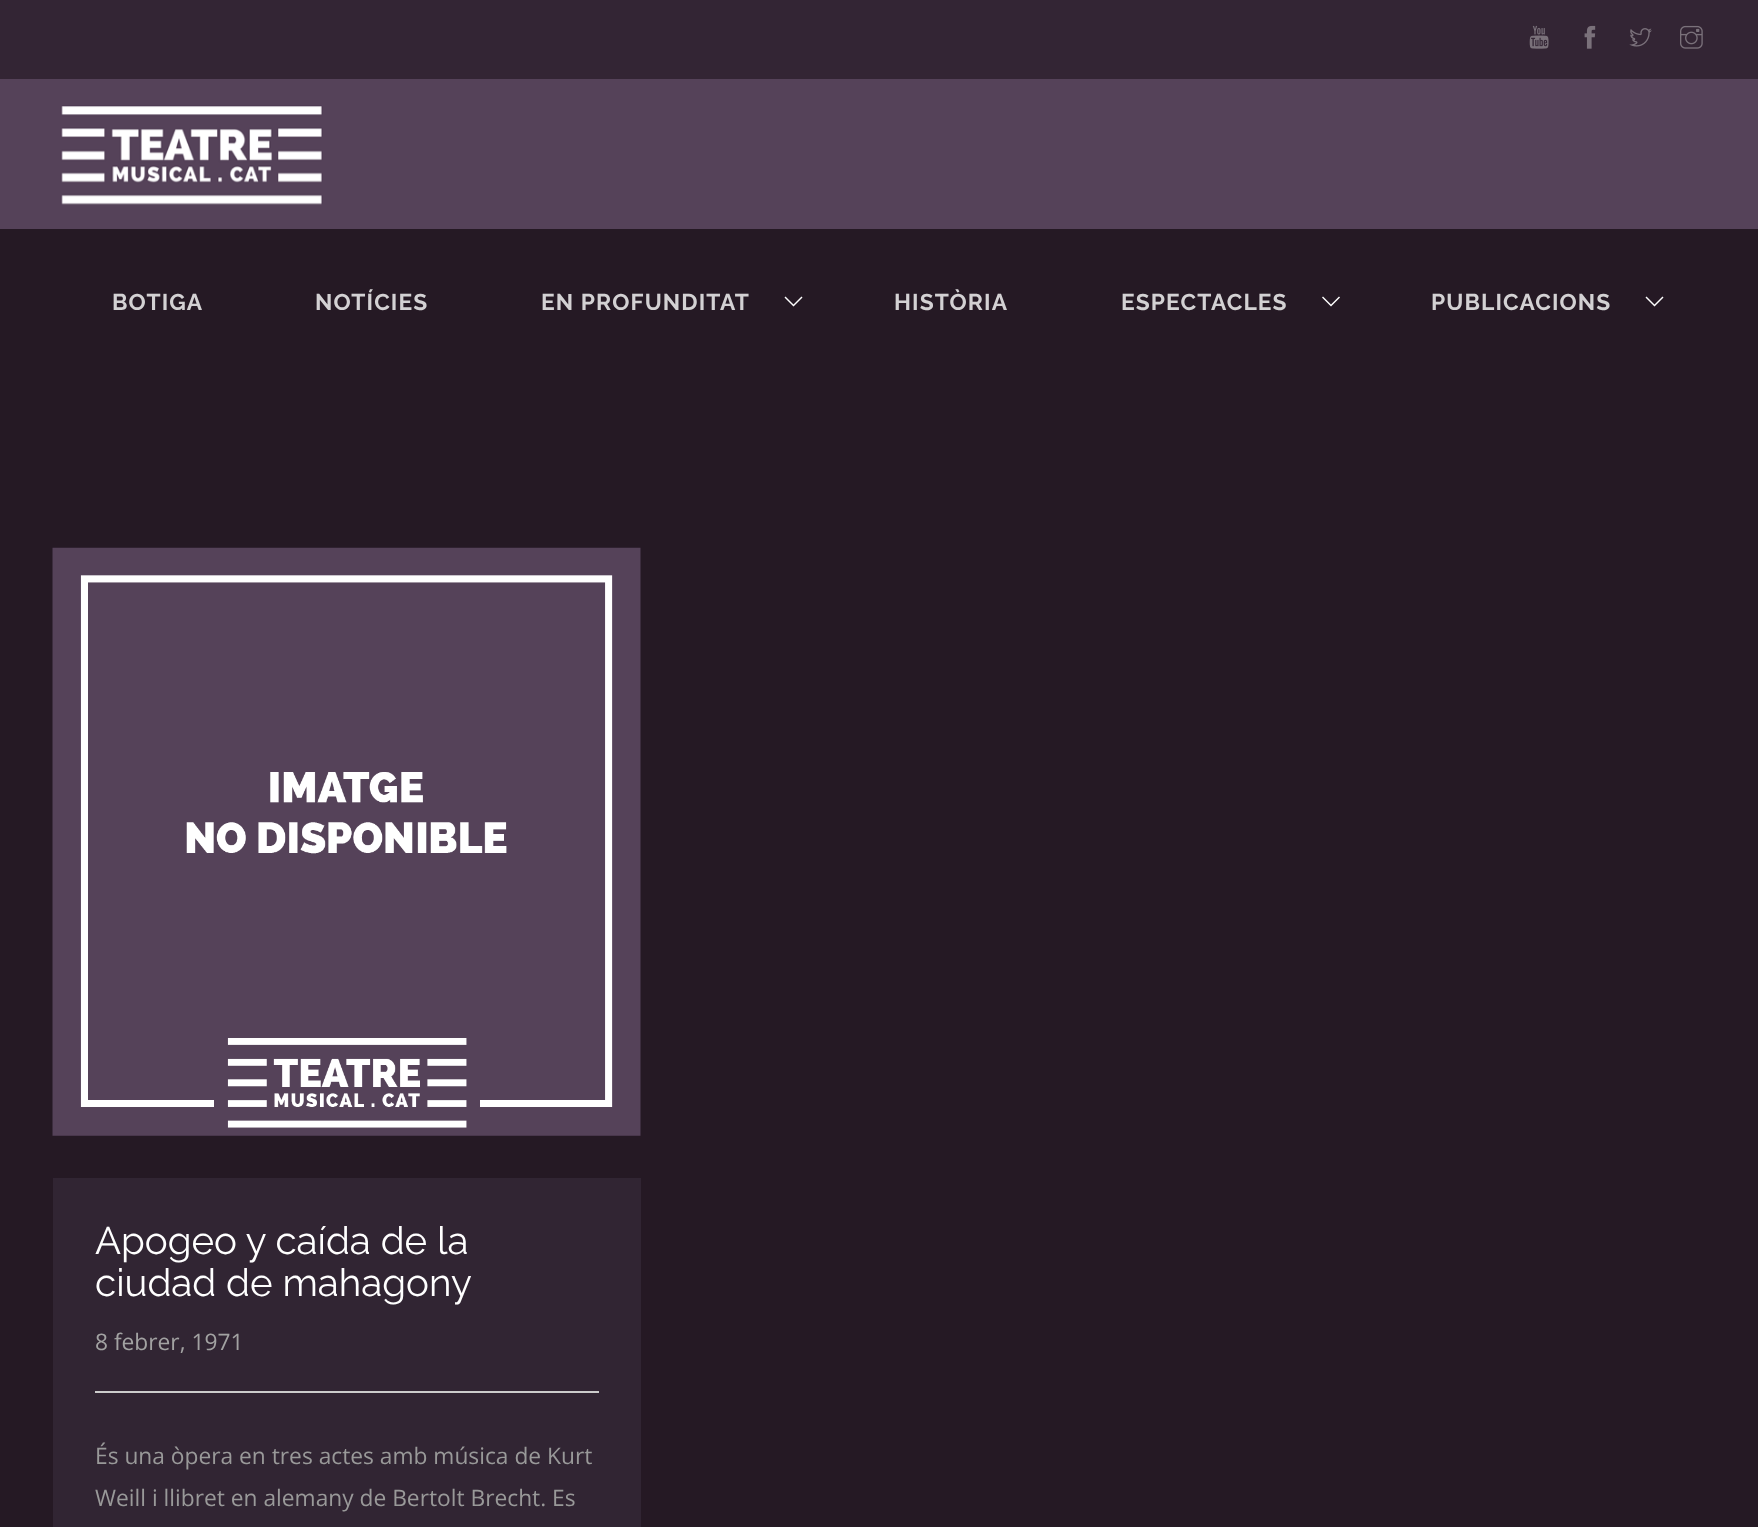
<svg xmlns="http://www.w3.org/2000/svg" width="1758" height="1527">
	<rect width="100%" height="100%" fill="#251924" />
	<rect x="0" y="79" width="1758" height="150" fill="#554259" />
	<rect x="0" y="0" width="1758" height="79" fill="#332534" />
	<image x="1529" y="25" width="20" height="24" href="assets/img1.png" />
	<image x="1584" y="25" width="12" height="24" href="assets/img2.png" />
	<image x="1629" y="28" width="23" height="19" href="assets/img3.png" />
	<image x="1680" y="25" width="23" height="24" href="assets/img4.png" />
	<image x="60" y="105" width="263" height="100" href="assets/img5.png" />
	<g font-family="Raleway" font-size="22.75" font-weight="700" letter-spacing="1.1" fill="#D3D1D3">
		<text x="112" y="310">BOTIGA</text>
		<text x="315" y="310">NOTÍCIES</text>
		<text x="541" y="310">EN PROFUNDITAT</text>
	</g>
	<path d="M802.5 297.5L793.5 306.5L784.5 297.5L785.5 296.5L793.5 304.5L801.5 296.5Z" fill="#FEFEFE" />
	<g font-family="Raleway" font-size="22.75" font-weight="700" letter-spacing="1.1" fill="#D3D1D3">
		<text x="894" y="310">HISTÒRIA</text>
		<text x="1121" y="310">ESPECTACLES</text>
	</g>
	<path d="M1340 297.5L1331 306.5L1322 297.5L1323 296.5L1331 304.5L1339 296.5Z" fill="#FEFEFE" />
	<text x="1431" y="310" font-family="Raleway" font-size="22.75" font-weight="700" letter-spacing="1.1" fill="#D3D1D3">PUBLICACIONS</text>
	<path d="M1663.5 297.5L1654.5 306.5L1645.5 297.5L1646.5 296.5L1654.5 304.5L1662.5 296.5Z" fill="#FEFEFE" />
	<image x="52" y="547" width="589" height="589" href="assets/img6.png" />
	<rect x="53" y="1178" width="588" height="349" fill="#312533" />
	<g font-family="Raleway" font-size="38.5" fill="#FFFFFF">
		<text x="95" y="1254">Apogeo y caída de la</text>
		<text x="95" y="1296">ciudad de mahagony</text>
	</g>
	<text x="95" y="1350" font-family="Open Sans" font-size="22.75" fill="#A2A2A2">8 febrer, 1971</text>
	<rect x="95" y="1391" width="504" height="2" fill="#CCCCCC" />
	<g font-family="Open Sans" font-size="22.75" fill="#999999">
		<text x="95" y="1464">És una òpera en tres actes amb música de Kurt</text>
		<text x="95" y="1506">Weill i llibret en alemany de Bertolt Brecht. Es</text>
	</g>
</svg>
